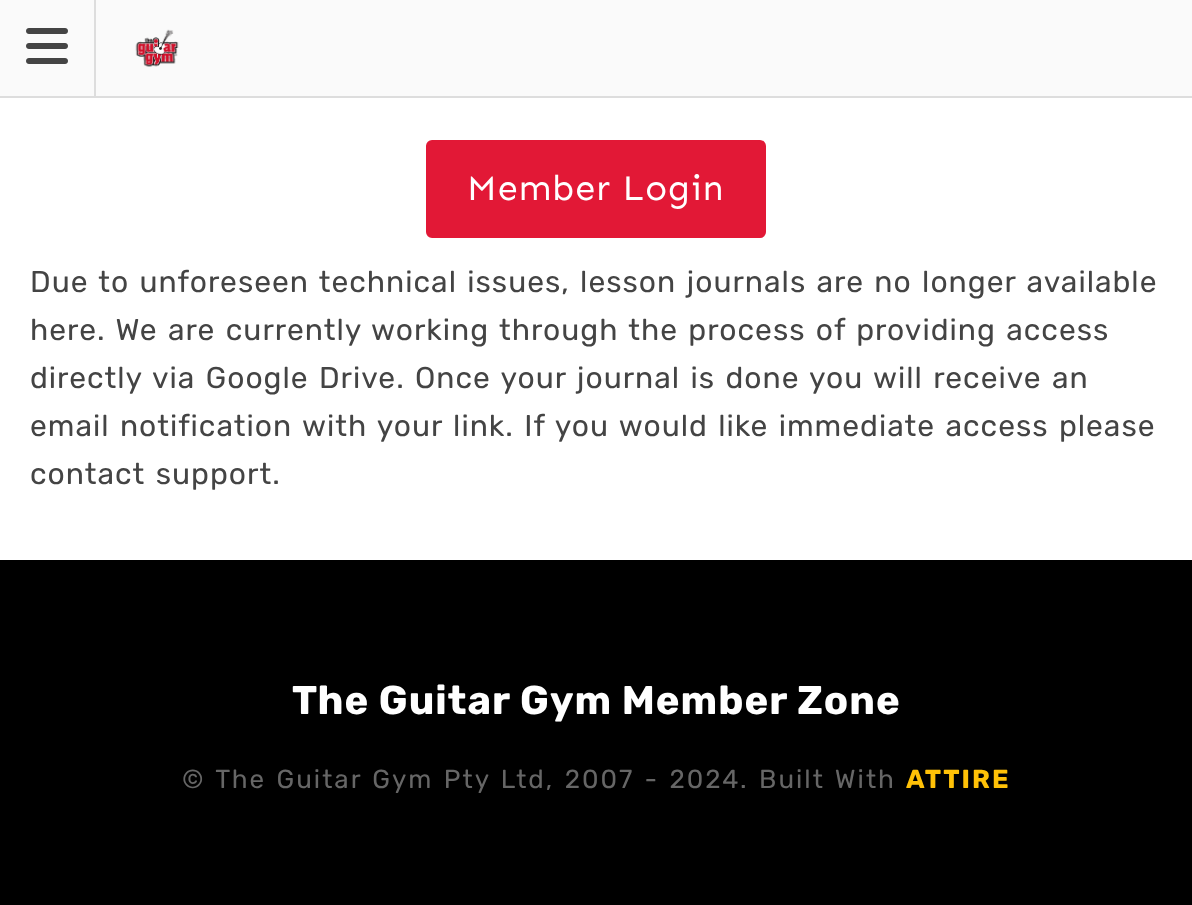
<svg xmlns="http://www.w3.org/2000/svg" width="1192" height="905">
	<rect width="100%" height="100%" fill="#FFFFFF" />
	<rect x="0" y="0" width="1192" height="96" fill="#FAFAFA" />
	<rect x="0" y="96" width="1192" height="2" fill="#DDDDDD" />
	<rect x="94" y="0" width="2" height="96" fill="#DDDDDD" />
	<image x="26" y="28" width="42" height="36" href="assets/img1.png" />
	<image x="135" y="29" width="44" height="38" href="assets/img2.png" />
	<rect x="427" y="141" width="338" height="96" rx="5" fill="#E21836" stroke="#E21836" stroke-width="2" />
	<text x="467" y="200" font-family="Sen" font-size="36" letter-spacing="1" fill="#FFFFFF">Member Login</text>
	<g font-family="Rubik" font-size="30" letter-spacing="1" fill="#444444">
		<text x="30" y="292" word-spacing="2">Due to unforeseen technical issues, lesson journals are no longer available</text>
		<text x="30" y="340" word-spacing="2">here. We are currently working through the process of providing access</text>
		<text x="30" y="388" word-spacing="2">directly via Google Drive. Once your journal is done you will receive an</text>
		<text x="30" y="436" word-spacing="2">email notification with your link. If you would like immediate access please</text>
		<text x="30" y="484" word-spacing="2">contact support.</text>
	</g>
	<rect x="0" y="560" width="1192" height="345" fill="#000000" />
	<text x="292" y="714" font-family="Rubik" font-size="40" font-weight="700" letter-spacing="1" fill="#FFFFFF">The Guitar Gym Member Zone</text>
	<text x="182" y="788" word-spacing="2" font-family="Rubik" font-size="26" letter-spacing="2" fill="#666666">© The Guitar Gym Pty Ltd, 2007 - 2024. Built With</text>
	<text x="906" y="788" font-family="Rubik" font-size="26" font-weight="700" letter-spacing="2" fill="#FFC107">ATTIRE</text>
</svg>
